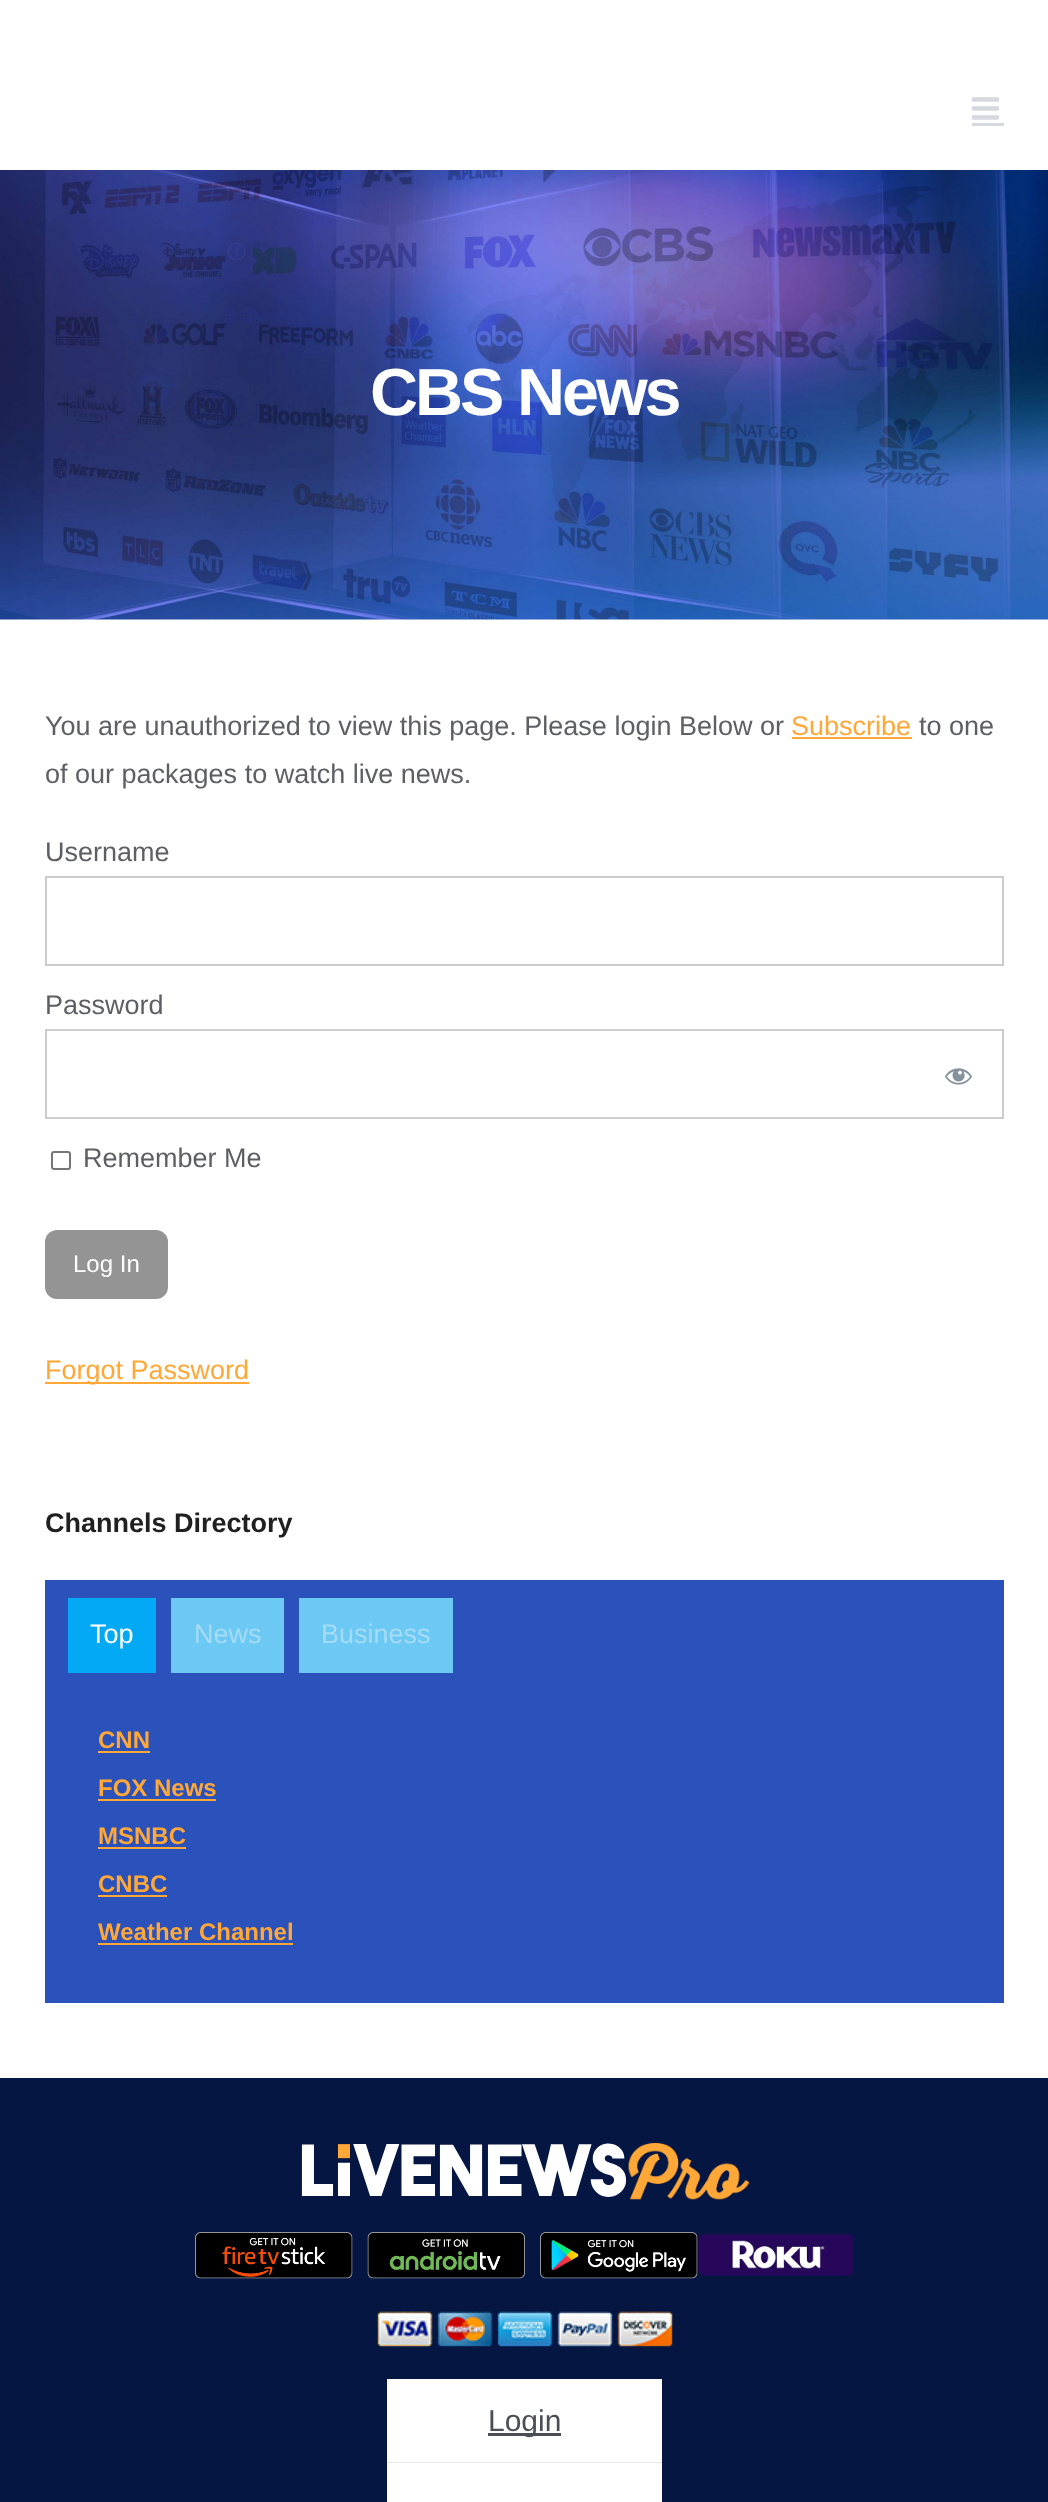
<svg xmlns="http://www.w3.org/2000/svg" width="1048" height="2502">
	<rect width="100%" height="100%" fill="#FFFFFF" />
	<image x="972" y="97" width="27" height="23" href="assets/img1.png" />
	<rect x="972" y="123" width="32" height="3" fill="#D5D8DF" />
	<image x="0" y="170" width="1048" height="450" href="assets/img2.png" />
	<text x="370" y="415" font-family="Liberation Sans" font-size="66.5" font-weight="700" letter-spacing="-3" fill="#FFFFFF">CBS News</text>
	<text x="45" y="735" font-family="Liberation Sans" font-size="27" fill="#5D5F64">You are unauthorized to view this page. Please login Below or</text>
	<text x="791" y="735" font-family="Liberation Sans" font-size="27" fill="#FFA737">Subscribe</text>
	<rect x="792" y="737" width="120" height="2" fill="#FFA737" />
	<g font-family="Liberation Sans" font-size="27" fill="#5D5F64">
		<text x="919" y="735">to one</text>
		<text x="45" y="783">of our packages to watch live news.</text>
		<text x="45" y="861">Username</text>
	</g>
	<rect x="46" y="877" width="957" height="88" fill="none" stroke="#CCCCCC" stroke-width="2" />
	<text x="45" y="1014" font-family="Liberation Sans" font-size="27" fill="#5D5F64">Password</text>
	<rect x="46" y="1030" width="957" height="88" fill="none" stroke="#CCCCCC" stroke-width="2" />
	<image x="945" y="1068" width="28" height="17" href="assets/img3.png" />
	<rect x="52" y="1152" width="18" height="17" rx="2" fill="none" stroke="#767676" stroke-width="2" />
	<text x="83" y="1167" font-family="Liberation Sans" font-size="27" fill="#5D5F64">Remember Me</text>
	<rect x="46" y="1231" width="121" height="67" rx="11" fill="#949494" stroke="#949494" stroke-width="2" />
	<text x="73" y="1272" font-family="Liberation Sans" font-size="24" fill="#FFFFFF">Log In</text>
	<rect x="45" y="1382" width="204" height="2" fill="#FFA737" />
	<text x="45" y="1379" font-family="Liberation Sans" font-size="27" fill="#FFA737">Forgot Password</text>
	<text x="45" y="1532" font-family="Liberation Sans" font-size="27" font-weight="700" fill="#202020">Channels Directory</text>
	<rect x="45" y="1580" width="959" height="423" fill="#2B52BB" />
	<rect x="68" y="1598" width="88" height="75" fill="#03A9F4" />
	<text x="90" y="1643" font-family="Liberation Sans" font-size="27" fill="#FFFFFF">Top</text>
	<rect x="171" y="1598" width="113" height="75" fill="#6BC9F4" />
	<text x="194" y="1643" font-family="Liberation Sans" font-size="27" fill="#A6DBF4">News</text>
	<rect x="299" y="1598" width="154" height="75" fill="#6BC9F4" />
	<text x="321" y="1643" font-family="Liberation Sans" font-size="27" fill="#A6DBF4">Business</text>
	<text x="98" y="1748" font-family="Liberation Sans" font-size="24" font-weight="700" fill="#FFA737">CNN</text>
	<rect x="98" y="1751" width="52" height="2" fill="#FFA737" />
	<text x="98" y="1796" font-family="Liberation Sans" font-size="24" font-weight="700" fill="#FFA737">FOX News</text>
	<rect x="98" y="1799" width="118" height="2" fill="#FFA737" />
	<text x="98" y="1844" font-family="Liberation Sans" font-size="24" font-weight="700" fill="#FFA737">MSNBC</text>
	<rect x="98" y="1847" width="88" height="2" fill="#FFA737" />
	<text x="98" y="1892" font-family="Liberation Sans" font-size="24" font-weight="700" fill="#FFA737">CNBC</text>
	<rect x="98" y="1895" width="69" height="2" fill="#FFA737" />
	<text x="98" y="1940" font-family="Liberation Sans" font-size="24" font-weight="700" fill="#FFA737">Weather Channel</text>
	<rect x="98" y="1943" width="195" height="2" fill="#FFA737" />
	<rect x="0" y="2078" width="1048" height="424" fill="#051643" />
	<image x="301" y="2142" width="449" height="58" href="assets/img4.png" />
	<image x="195" y="2232" width="158" height="47" href="assets/img5.png" />
	<image x="367" y="2232" width="158" height="47" href="assets/img6.png" />
	<image x="540" y="2232" width="158" height="47" href="assets/img7.png" />
	<image x="698" y="2233" width="156" height="43" href="assets/img8.png" />
	<image x="377" y="2311" width="296" height="36" href="assets/img9.png" />
	<rect x="387" y="2379" width="275" height="83" fill="#FFFFFF" />
	<rect x="387" y="2462" width="275" height="1" fill="#E6E6E6" />
	<rect x="488" y="2433" width="73" height="3" fill="#4A4E57" />
	<text x="488" y="2431" font-family="Liberation Sans" font-size="30" fill="#4A4E57">Login</text>
	<rect x="387" y="2463" width="275" height="39" fill="#FFFFFF" />
</svg>
